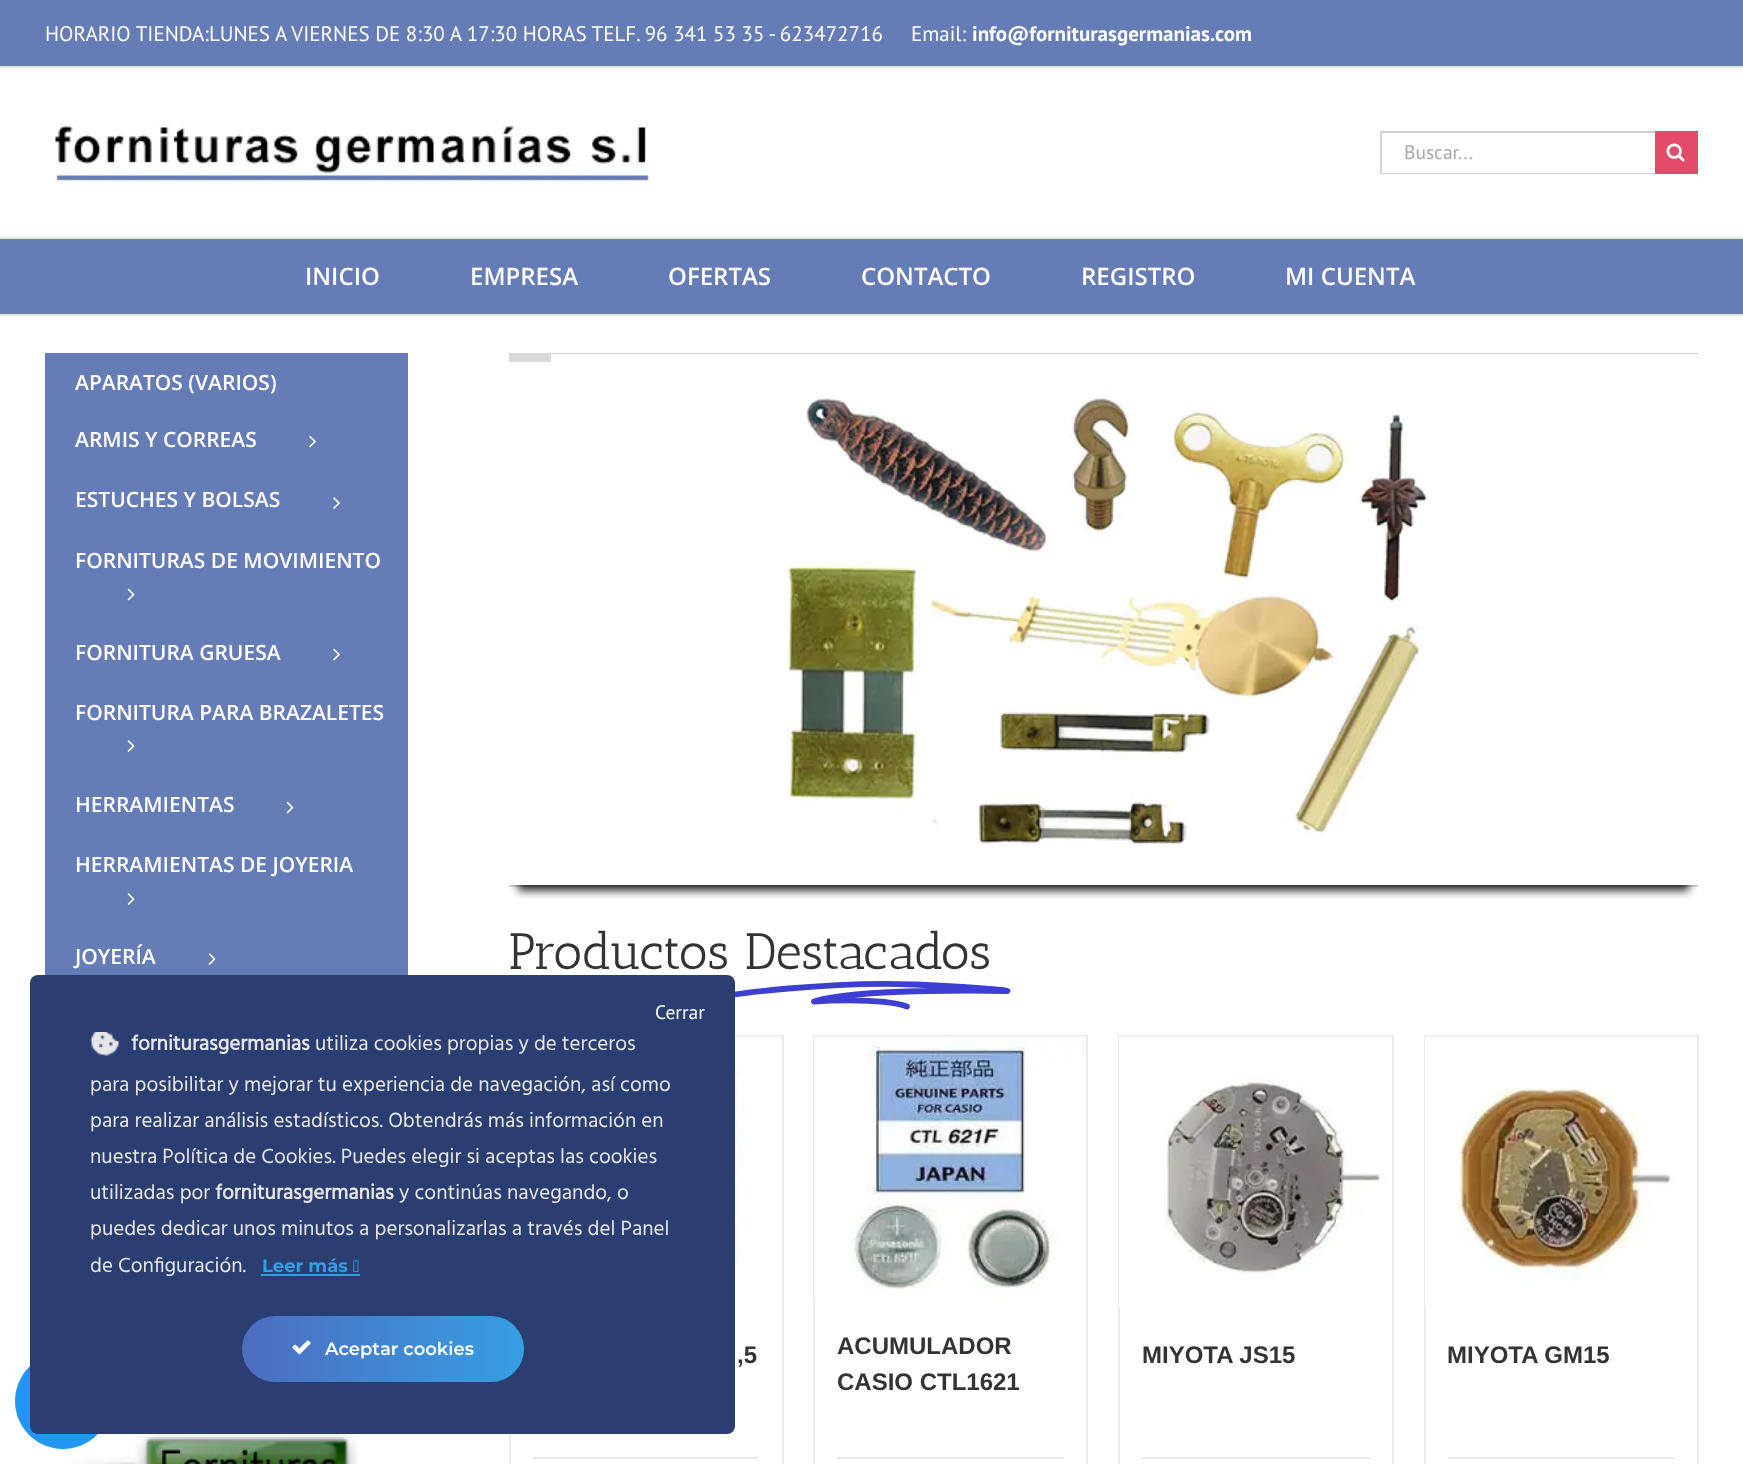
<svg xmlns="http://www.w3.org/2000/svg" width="1743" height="1464">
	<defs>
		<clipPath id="clip1"><rect x="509" y="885" width="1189" height="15" /></clipPath>
		<linearGradient id="g1" gradientUnits="userSpaceOnUse" x1="242" y1="1349" x2="524" y2="1349"><stop offset="0" stop-color="#4D6DC0" /><stop offset="1" stop-color="#369EE3" /></linearGradient>
	</defs>
	<rect width="100%" height="100%" fill="#FFFFFF" />
	<rect x="0" y="0" width="1743" height="66" fill="#657CB6" />
	<rect x="0" y="66" width="1743" height="2" fill="#E5E5E5" />
	<g font-family="PT Sans" font-size="21" fill="#FFFFFF">
		<text x="45" y="41">HORARIO TIENDA:LUNES A VIERNES DE 8:30 A 17:30 HORAS TELF. 96 341 53 35 - 623472716</text>
		<text x="911" y="41">Email:</text>
	</g>
	<text x="972" y="41" font-family="PT Sans" font-size="21" font-weight="700" fill="#FFFFFF">info@forniturasgermanias.com</text>
	<rect x="0" y="237" width="1743" height="2" fill="#E5E5E5" />
	<image x="55" y="124" width="596" height="58" href="assets/img1.png" />
	<rect x="1380" y="131" width="275" height="2" fill="#D2D2D2" />
	<rect x="1380" y="173" width="275" height="1" fill="#D2D2D2" />
	<rect x="1380" y="131" width="2" height="43" fill="#D2D2D2" />
	<text x="1404" y="159" font-family="PT Sans" font-size="19.5" fill="#AAA9A9">Buscar...</text>
	<rect x="1655" y="131" width="43" height="43" fill="#E44B69" />
	<image x="1666" y="143" width="19" height="19" href="assets/img2.png" />
	<rect x="0" y="239" width="1743" height="75" fill="#657CB6" />
	<rect x="0" y="314" width="1743" height="2" fill="#E5E5E5" />
	<g font-family="Open Sans" font-size="24" font-weight="600" fill="#FFFFFF">
		<text x="305" y="285">INICIO</text>
		<text x="470" y="285">EMPRESA</text>
		<text x="668" y="285">OFERTAS</text>
		<text x="861" y="285">CONTACTO</text>
		<text x="1081" y="285">REGISTRO</text>
		<text x="1285" y="285">MI CUENTA</text>
	</g>
	<rect x="45" y="353" width="363" height="622" fill="#657CB6" />
	<g font-family="Open Sans" font-size="21" font-weight="600" fill="#FFFFFF">
		<text x="75" y="390">APARATOS (VARIOS)</text>
		<text x="75" y="447">ARMIS Y CORREAS</text>
	</g>
	<image x="309" y="435" width="7" height="13" href="assets/img3.png" />
	<text x="75" y="507" font-family="Open Sans" font-size="21" font-weight="600" fill="#FFFFFF">ESTUCHES Y BOLSAS</text>
	<image x="333" y="497" width="7" height="12" href="assets/img4.png" />
	<text x="75" y="568" font-family="Open Sans" font-size="21" font-weight="600" fill="#FFFFFF">FORNITURAS DE MOVIMIENTO</text>
	<image x="127" y="588" width="8" height="13" href="assets/img5.png" />
	<text x="75" y="660" font-family="Open Sans" font-size="21" font-weight="600" fill="#FFFFFF">FORNITURA GRUESA</text>
	<image x="333" y="648" width="7" height="13" href="assets/img3.png" />
	<text x="75" y="720" font-family="Open Sans" font-size="21" font-weight="600" fill="#FFFFFF">FORNITURA PARA BRAZALETES</text>
	<image x="127" y="740" width="8" height="12" href="assets/img6.png" />
	<text x="75" y="812" font-family="Open Sans" font-size="21" font-weight="600" fill="#FFFFFF">HERRAMIENTAS</text>
	<image x="286" y="801" width="8" height="13" href="assets/img5.png" />
	<text x="75" y="872" font-family="Open Sans" font-size="21" font-weight="600" fill="#FFFFFF">HERRAMIENTAS DE JOYERIA</text>
	<image x="127" y="893" width="8" height="12" href="assets/img6.png" />
	<text x="75" y="964" font-family="Open Sans" font-size="21" font-weight="600" fill="#FFFFFF">JOYERÍA</text>
	<image x="208" y="953" width="8" height="12" href="assets/img6.png" />
	<image x="71" y="1434" width="287" height="30" href="assets/img7.png" />
	<rect x="509" y="353" width="1189" height="2" fill="#D2D3D4" />
	<rect x="509" y="885" width="1189" height="2" fill="#D2D3D4" />
	<g clip-path="url(#clip1)">
		<rect x="518" y="378" width="1171" height="513" fill="#000000" fill-opacity="0.8" filter="blur(4.5px)" />
	</g>
	<image x="509" y="354" width="1189" height="492" href="assets/img8.png" />
	<rect x="509" y="354" width="42" height="8" fill="#D9D9D9" />
	<text x="508" y="969" font-family="Antic Slab" font-size="51" fill="#333333">Productos Destacados</text>
	<path d="M728 995.5C728 995.5 827 980.5 915 984.5C1003.5 989 1007.5 991 1007.5 991C1007.5 991 858 987.5 814 1001.5C814 1001.5 879 997 907 1006.5" fill="none" stroke="#3D3FD2" stroke-width="5.8" stroke-linecap="round" stroke-linejoin="round" />
	<rect x="735" y="1035" width="48" height="2" fill="#EBEAEA" />
	<rect x="782" y="1035" width="2" height="429" fill="#EBEAEA" />
	<rect x="509" y="1434" width="2" height="30" fill="#EBEAEA" />
	<image x="735" y="1036" width="47" height="272" href="assets/img9.png" />
	<text x="737" y="1363" font-family="Liberation Sans" font-size="24" font-weight="700" fill="#333333">,5</text>
	<rect x="533" y="1457" width="226" height="2" fill="#EBEAEA" />
	<rect x="813" y="1035" width="275" height="2" fill="#EBEAEA" />
	<rect x="1086" y="1035" width="2" height="429" fill="#EBEAEA" />
	<rect x="813" y="1035" width="2" height="429" fill="#EBEAEA" />
	<image x="814" y="1036" width="272" height="263" href="assets/img10.png" />
	<g font-family="Liberation Sans" font-size="24" font-weight="700" fill="#333333">
		<text x="837" y="1354">ACUMULADOR</text>
		<text x="837" y="1390">CASIO CTL1621</text>
	</g>
	<rect x="837" y="1457" width="227" height="2" fill="#EBEAEA" />
	<rect x="1118" y="1035" width="276" height="2" fill="#EBEAEA" />
	<rect x="1392" y="1035" width="2" height="429" fill="#EBEAEA" />
	<rect x="1118" y="1035" width="2" height="429" fill="#EBEAEA" />
	<image x="1119" y="1036" width="273" height="272" href="assets/img11.png" />
	<text x="1142" y="1363" font-family="Liberation Sans" font-size="24" font-weight="700" fill="#333333">MIYOTA JS15</text>
	<rect x="1142" y="1457" width="228" height="2" fill="#EBEAEA" />
	<rect x="1424" y="1035" width="274" height="2" fill="#EBEAEA" />
	<rect x="1697" y="1035" width="2" height="429" fill="#EBEAEA" />
	<rect x="1424" y="1035" width="2" height="429" fill="#EBEAEA" />
	<image x="1425" y="1036" width="272" height="272" href="assets/img12.png" />
	<text x="1447" y="1363" font-family="Liberation Sans" font-size="24" font-weight="700" fill="#333333">MIYOTA GM15</text>
	<rect x="1448" y="1457" width="226" height="2" fill="#EBEAEA" />
	<circle cx="63" cy="1401" r="48" fill="#2196F3" />
	<rect x="30" y="975" width="705" height="459" rx="8" fill="#2A3E71" />
	<text x="655" y="1019" font-family="PT Sans" font-size="19.5" fill="#FFFFFF">Cerrar</text>
	<image x="90" y="1032" width="30" height="24" href="assets/img13.png" />
	<text x="131" y="1050" font-family="Hind" font-size="21" font-weight="700" fill="#E5E5E5">forniturasgermanias</text>
	<g font-family="Hind" font-size="21" fill="#E5E5E5">
		<text x="315" y="1050">utiliza cookies propias y de terceros</text>
		<text x="90" y="1091">para posibilitar y mejorar tu experiencia de navegación, así como</text>
		<text x="90" y="1127">para realizar análisis estadísticos. Obtendrás más información en</text>
		<text x="90" y="1163">nuestra Política de Cookies. Puedes elegir si aceptas las cookies</text>
		<text x="90" y="1199">utilizadas por</text>
	</g>
	<text x="215" y="1199" font-family="Hind" font-size="21" font-weight="700" fill="#E5E5E5">forniturasgermanias</text>
	<g font-family="Hind" font-size="21" fill="#E5E5E5">
		<text x="399" y="1199">y continúas navegando, o</text>
		<text x="90" y="1235">puedes dedicar unos minutos a personalizarlas a través del Panel</text>
		<text x="90" y="1272">de Configuración.</text>
	</g>
	<text x="262" y="1272" font-family="Montserrat" font-size="18" font-weight="700" fill="#369EE3">Leer más</text>
	<rect x="261" y="1274" width="99" height="2" fill="#369EE3" />
	<image x="353" y="1260" width="6" height="12" href="assets/img14.png" />
	<rect x="242" y="1316" width="282" height="66" rx="33" fill="url(#g1)" />
	<image x="292" y="1340" width="19" height="15" href="assets/img15.png" />
	<text x="325" y="1355" font-family="Montserrat" font-size="18" font-weight="600" fill="#FFFFFF">Aceptar cookies</text>
</svg>
